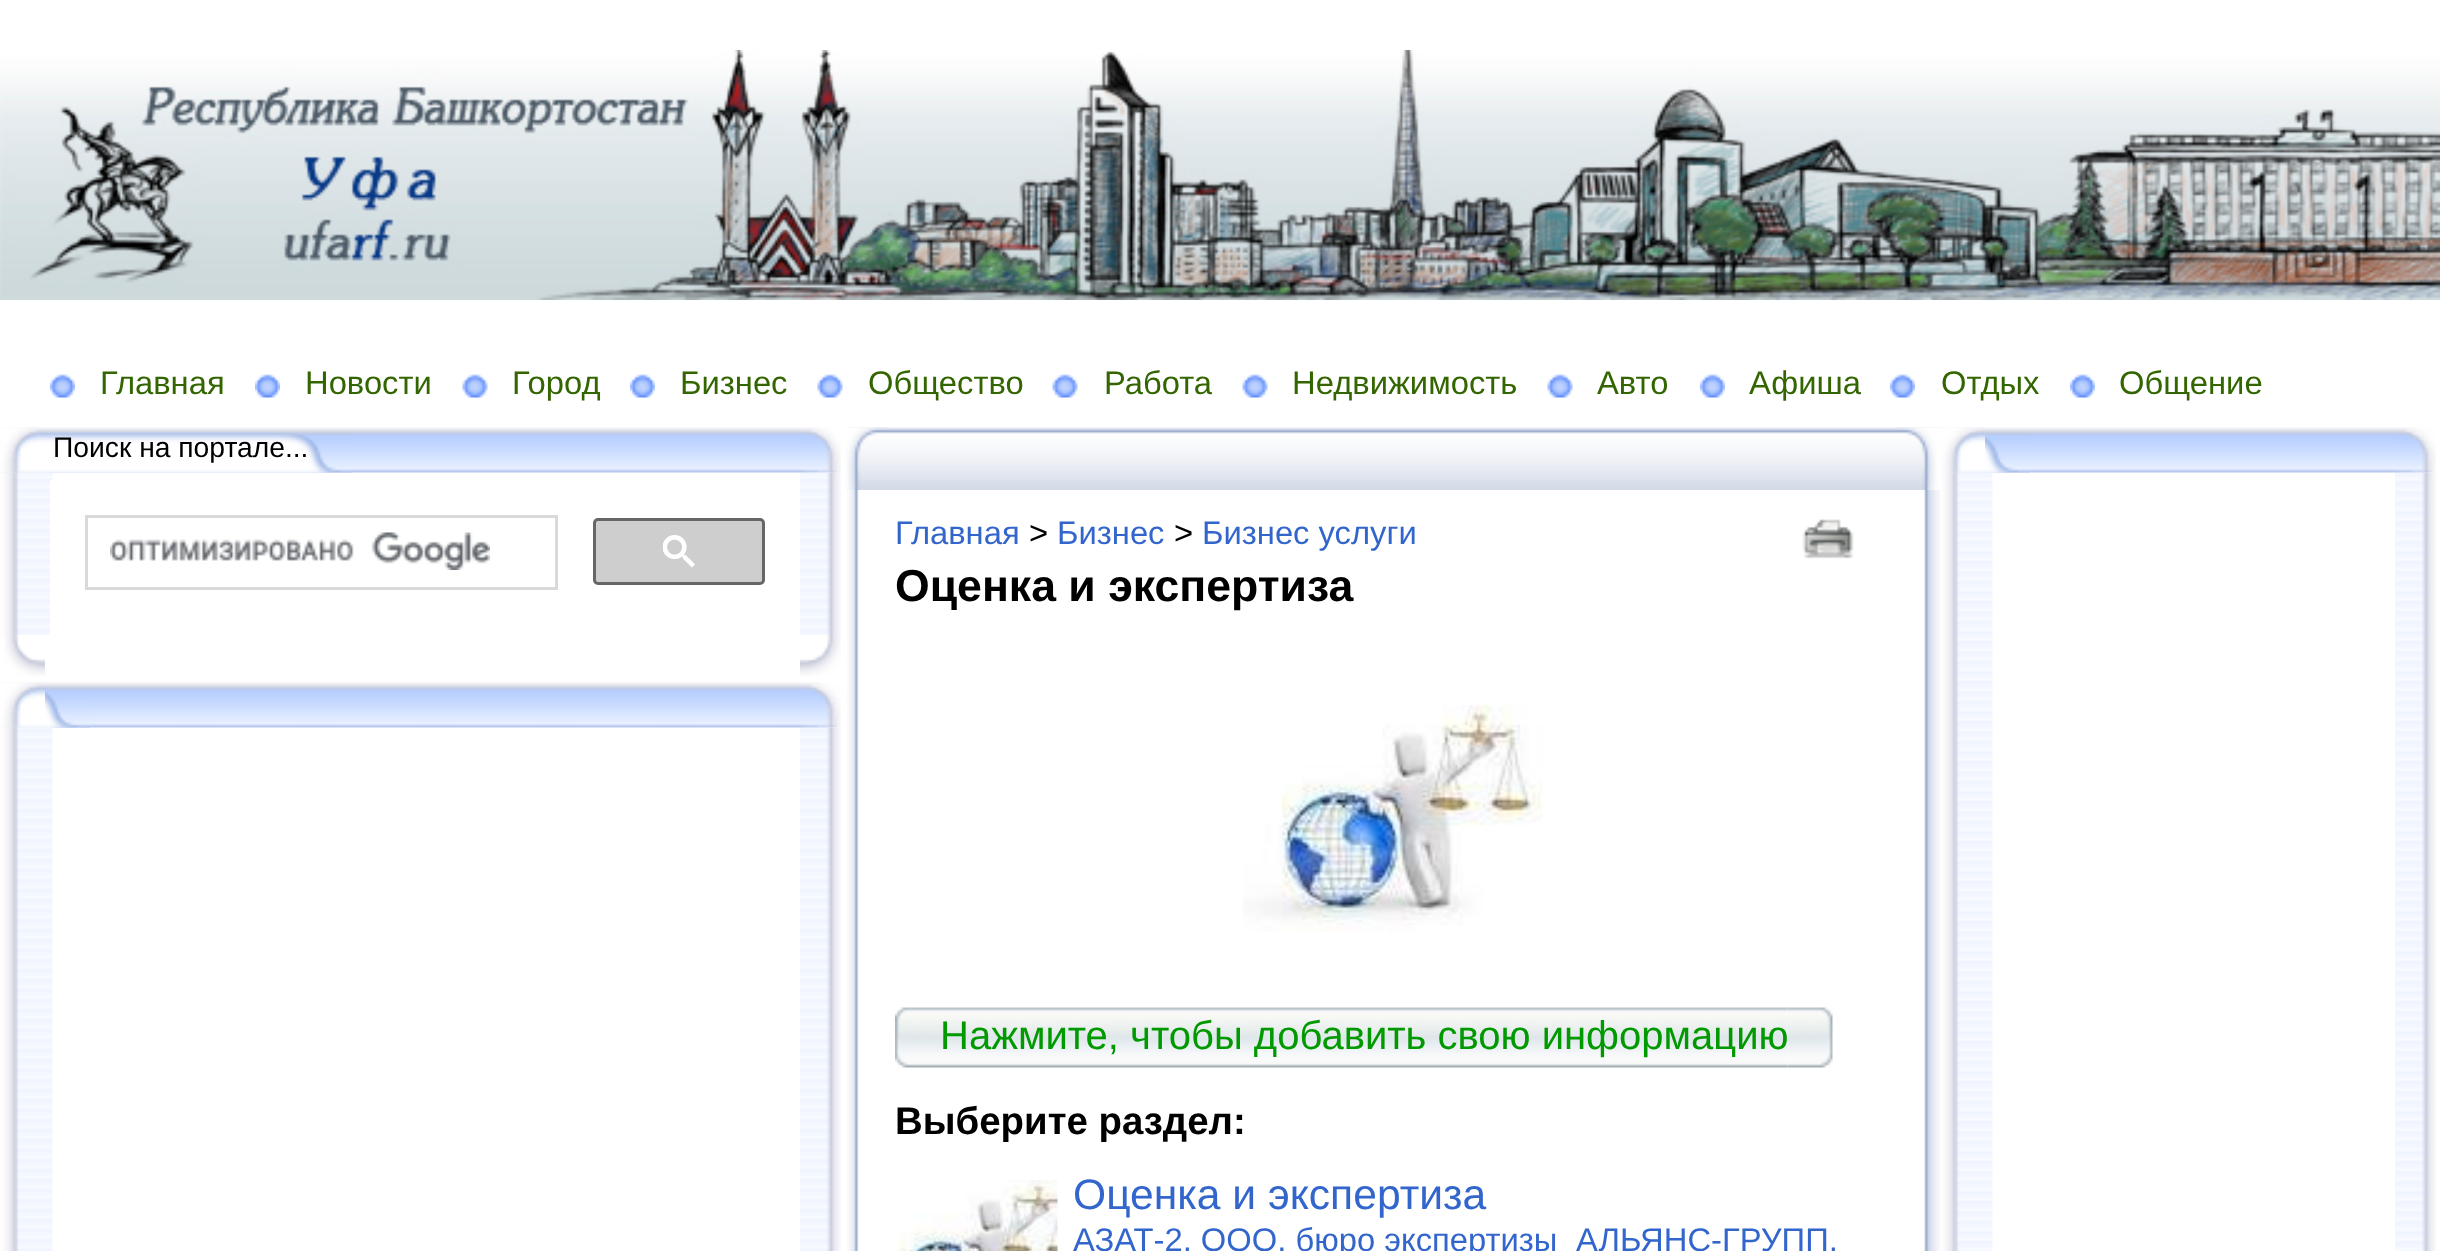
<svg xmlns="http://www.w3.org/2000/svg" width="2440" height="1251">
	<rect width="100%" height="100%" fill="#FFFFFF" />
	<image x="0" y="50" width="2440" height="250" href="assets/img1.png" />
	<image x="50" y="374" width="25" height="24" href="assets/img2.png" />
	<text x="100" y="394" font-family="Liberation Sans" font-size="32.75" fill="#336600">Главная</text>
	<image x="255" y="374" width="25" height="24" href="assets/img2.png" />
	<text x="305" y="394" font-family="Liberation Sans" font-size="32.75" fill="#336600">Новости</text>
	<image x="462" y="374" width="26" height="24" href="assets/img3.png" />
	<text x="512" y="394" font-family="Liberation Sans" font-size="32.75" fill="#336600">Город</text>
	<image x="630" y="374" width="25" height="24" href="assets/img2.png" />
	<text x="680" y="394" font-family="Liberation Sans" font-size="32.75" fill="#336600">Бизнес</text>
	<image x="817" y="374" width="26" height="24" href="assets/img4.png" />
	<text x="868" y="394" font-family="Liberation Sans" font-size="32.75" fill="#336600">Общество</text>
	<image x="1052" y="374" width="26" height="24" href="assets/img4.png" />
	<text x="1104" y="394" font-family="Liberation Sans" font-size="32.75" fill="#336600">Работа</text>
	<image x="1242" y="374" width="26" height="24" href="assets/img3.png" />
	<text x="1292" y="394" font-family="Liberation Sans" font-size="32.75" fill="#336600">Недвижимость</text>
	<image x="1547" y="374" width="26" height="24" href="assets/img4.png" />
	<text x="1597" y="394" font-family="Liberation Sans" font-size="32.75" fill="#336600">Авто</text>
	<image x="1700" y="374" width="25" height="24" href="assets/img5.png" />
	<text x="1749" y="394" font-family="Liberation Sans" font-size="32.75" fill="#336600">Афиша</text>
	<image x="1890" y="374" width="25" height="24" href="assets/img2.png" />
	<text x="1941" y="394" font-family="Liberation Sans" font-size="32.75" fill="#336600">Отдых</text>
	<image x="2070" y="374" width="25" height="24" href="assets/img2.png" />
	<text x="2119" y="394" font-family="Liberation Sans" font-size="32.75" fill="#336600">Общение</text>
	<image x="0" y="427" width="800" height="46" href="assets/img6.png" />
	<image x="0" y="432" width="353" height="41" href="assets/img7.png" />
	<image x="0" y="472" width="53" height="163" href="assets/img10.png" />
	<image x="0" y="427" width="38" height="46" href="assets/img8.png" />
	<text x="53" y="457" font-family="Liberation Sans" font-size="28.25" fill="#000000">Поиск на портале...</text>
	<image x="800" y="472" width="41" height="163" href="assets/img13.png" />
	<image x="800" y="427" width="41" height="46" href="assets/img9.png" />
	<rect x="50" y="480" width="3" height="155" fill="#FFFFFF" />
	<rect x="86.5" y="516.5" width="470" height="72" fill="none" stroke="#D9D9D9" stroke-width="3" />
	<image x="110" y="532" width="380" height="38" href="assets/img11.png" />
	<rect x="594.5" y="519.5" width="169" height="64" rx="3.5" fill="#CECECE" stroke="#666666" stroke-width="3" />
	<image x="663" y="535" width="32" height="33" href="assets/img12.png" />
	<image x="4" y="635" width="41" height="41" href="assets/img14.png" />
	<image x="800" y="635" width="41" height="41" href="assets/img15.png" />
	<image x="0" y="682" width="800" height="46" href="assets/img16.png" />
	<image x="0" y="687" width="90" height="41" href="assets/img17.png" />
	<image x="0" y="727" width="53" height="524" href="assets/img20.png" />
	<image x="0" y="682" width="45" height="46" href="assets/img18.png" />
	<image x="800" y="727" width="41" height="524" href="assets/img21.png" />
	<image x="800" y="682" width="41" height="46" href="assets/img19.png" />
	<image x="1940" y="427" width="455" height="46" href="assets/img22.png" />
	<image x="1940" y="432" width="90" height="41" href="assets/img23.png" />
	<image x="1940" y="472" width="53" height="779" href="assets/img26.png" />
	<image x="1940" y="427" width="45" height="46" href="assets/img24.png" />
	<image x="2395" y="472" width="41" height="779" href="assets/img27.png" />
	<image x="2395" y="427" width="41" height="46" href="assets/img25.png" />
	<image x="845" y="427" width="1095" height="63" href="assets/img28.png" />
	<image x="1898" y="427" width="42" height="63" href="assets/img29.png" />
	<image x="845" y="427" width="40" height="63" href="assets/img30.png" />
	<image x="847" y="490" width="12" height="761" href="assets/img31.png" />
	<image x="1924" y="490" width="16" height="761" href="assets/img32.png" />
	<text x="895" y="544" font-family="Liberation Sans" font-size="32.75" fill="#3366CC">Главная</text>
	<text x="1029" y="544" font-family="Liberation Sans" font-size="32.75" fill="#000000">&gt;</text>
	<text x="1057" y="544" font-family="Liberation Sans" font-size="32.75" fill="#3366CC">Бизнес</text>
	<text x="1174" y="544" font-family="Liberation Sans" font-size="32.75" fill="#000000">&gt;</text>
	<text x="1202" y="544" font-family="Liberation Sans" font-size="32.75" fill="#3366CC">Бизнес услуги</text>
	<text x="895" y="601" font-family="Liberation Sans" font-size="44.6" font-weight="700" fill="#000000">Оценка и экспертиза</text>
	<image x="1243" y="705" width="300" height="227" href="assets/img33.png" />
	<image x="1787" y="1007" width="46" height="61" href="assets/img34.png" />
	<image x="895" y="1007" width="893" height="61" href="assets/img35.png" />
	<text x="940" y="1049" font-family="Liberation Sans" font-size="40" fill="#009900">Нажмите, чтобы добавить свою информацию</text>
	<image x="1802" y="519" width="52" height="40" href="assets/img36.png" />
	<text x="895" y="1134" font-family="Liberation Sans" font-size="38.4" font-weight="700" fill="#000000">Выберите раздел:</text>
	<image x="897" y="1180" width="161" height="71" href="assets/img37.png" />
	<text x="1073" y="1209" font-family="Liberation Sans" font-size="42.6" fill="#3366CC">Оценка и экспертиза</text>
	<g font-family="Liberation Sans" font-size="32.75" fill="#3366CC">
		<text x="1073" y="1251">АЗАТ-2, ООО, бюро экспертизы</text>
		<text x="1576" y="1251">АЛЬЯНС-ГРУПП,</text>
	</g>
</svg>
